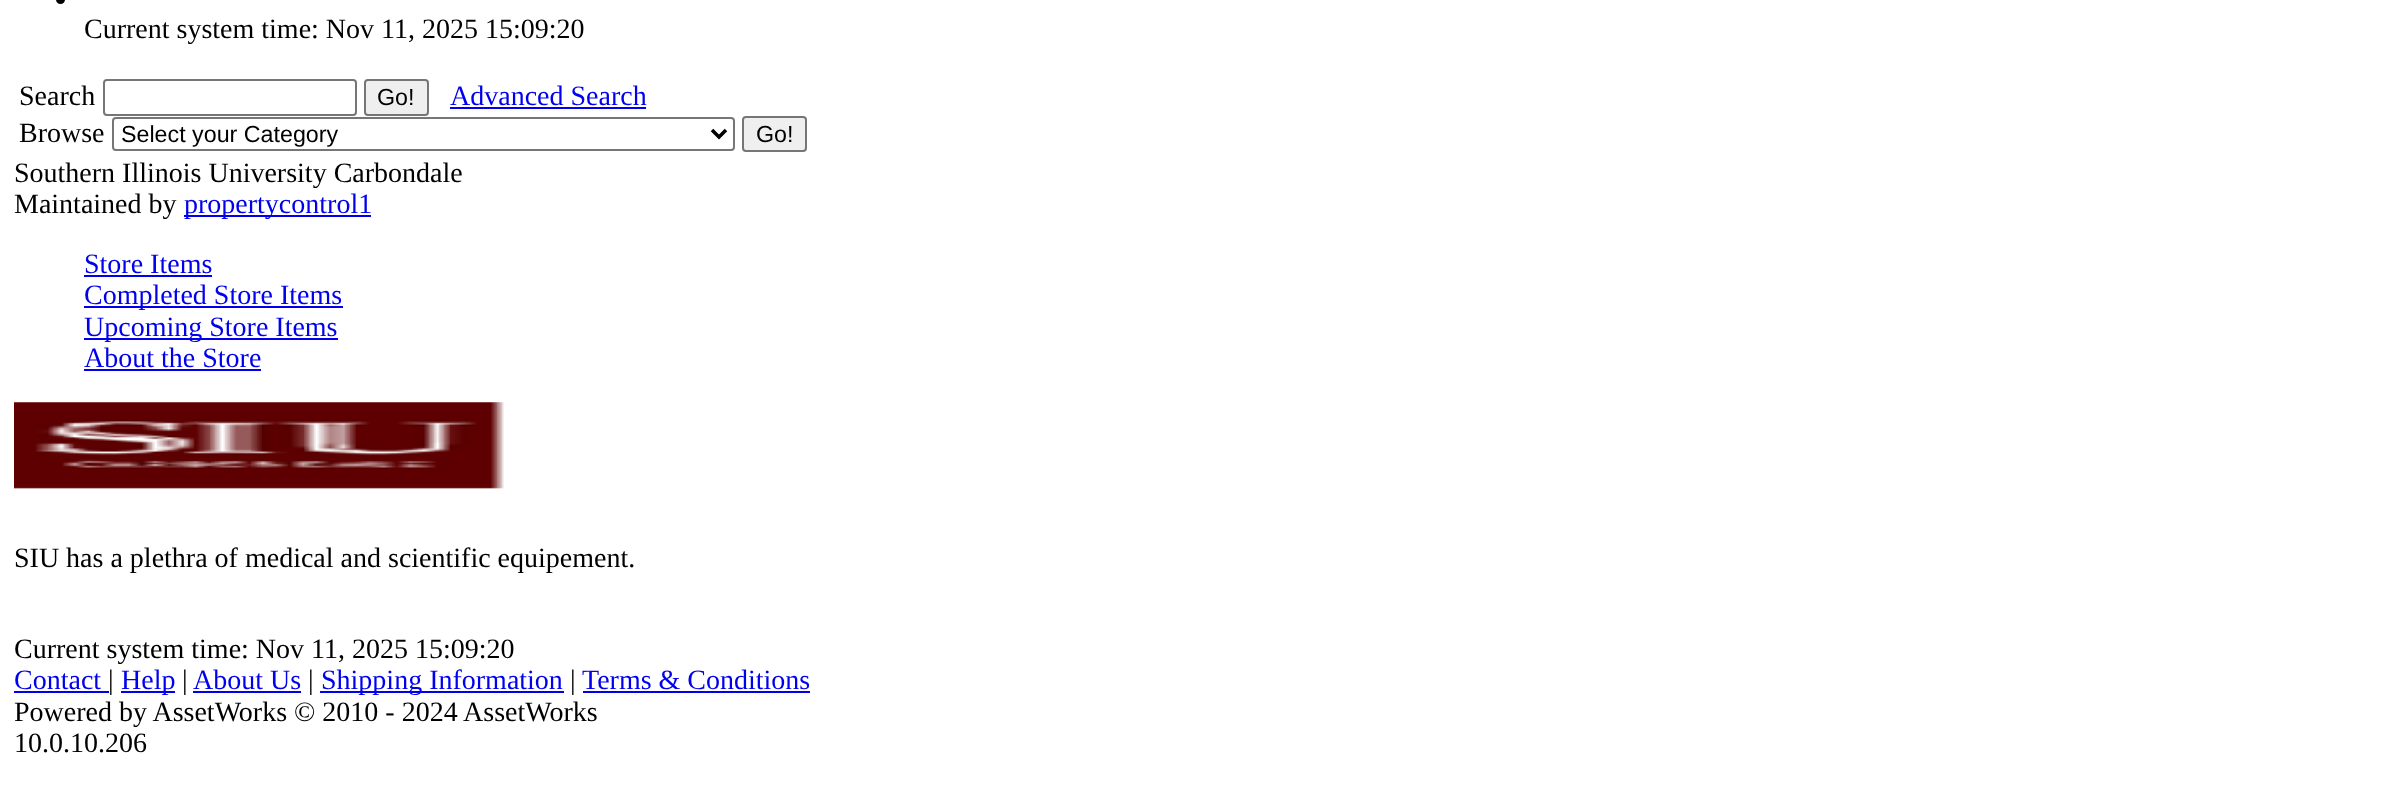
<svg xmlns="http://www.w3.org/2000/svg" width="2389" height="790">
	<rect width="100%" height="100%" fill="#FFFFFF" />
	<circle cx="60.5" cy="-0.5" r="4.5" fill="#000000" />
	<g font-family="Liberation Serif" font-size="28" fill="#000000">
		<text x="84" y="38">Current system time: Nov 11, 2025 15:09:20</text>
		<text x="19" y="105">Search</text>
	</g>
	<rect x="104" y="80" width="252" height="35" rx="3" fill="none" stroke="#767676" stroke-width="2" />
	<rect x="365" y="80" width="63" height="35" rx="3" fill="#EFEFEF" stroke="#767676" stroke-width="2" />
	<text x="377" y="105" font-family="Liberation Sans" font-size="23.25" fill="#000000">Go!</text>
	<text x="450" y="105" font-family="Liberation Serif" font-size="28" fill="#0000EE">Advanced Search</text>
	<rect x="450" y="107" width="196" height="2" fill="#0000EE" />
	<text x="19" y="142" font-family="Liberation Serif" font-size="28" fill="#000000">Browse</text>
	<rect x="113" y="118" width="621" height="32" rx="3" fill="none" stroke="#767676" stroke-width="2" />
	<path d="M712 130L719 137L726 130" fill="none" stroke="#000000" stroke-width="3.5" />
	<text x="121" y="142" font-family="Liberation Sans" font-size="23.25" fill="#000000">Select your Category</text>
	<rect x="743" y="117" width="63" height="34" rx="3" fill="#EFEFEF" stroke="#767676" stroke-width="2" />
	<text x="756" y="142" font-family="Liberation Sans" font-size="23.25" fill="#000000">Go!</text>
	<g font-family="Liberation Serif" font-size="28" fill="#000000">
		<text x="14" y="182">Southern Illinois University Carbondale</text>
		<text x="14" y="213">Maintained by</text>
	</g>
	<rect x="184" y="215" width="187" height="2" fill="#0000EE" />
	<g font-family="Liberation Serif" font-size="28" fill="#0000EE">
		<text x="184" y="213">propertycontrol1</text>
		<text x="84" y="273">Store Items</text>
	</g>
	<rect x="84" y="275" width="128" height="2" fill="#0000EE" />
	<rect x="84" y="306" width="259" height="2" fill="#0000EE" />
	<text x="84" y="304" font-family="Liberation Serif" font-size="28" fill="#0000EE">Completed Store Items</text>
	<rect x="84" y="338" width="254" height="2" fill="#0000EE" />
	<g font-family="Liberation Serif" font-size="28" fill="#0000EE">
		<text x="84" y="336">Upcoming Store Items</text>
		<text x="84" y="367">About the Store</text>
	</g>
	<rect x="84" y="369" width="177" height="2" fill="#0000EE" />
	<image x="14" y="402" width="490" height="87" href="assets/img1.png" />
	<g font-family="Liberation Serif" font-size="28" fill="#000000">
		<text x="14" y="567">SIU has a plethra of medical and scientific equipement.</text>
		<text x="14" y="658">Current system time: Nov 11, 2025 15:09:20</text>
	</g>
	<text x="14" y="689" font-family="Liberation Serif" font-size="28" fill="#0000EE">Contact</text>
	<rect x="14" y="691" width="95" height="2" fill="#0000EE" />
	<text x="108" y="689" font-family="Liberation Serif" font-size="28" fill="#000000">|</text>
	<rect x="121" y="691" width="54" height="2" fill="#0000EE" />
	<text x="121" y="689" font-family="Liberation Serif" font-size="28" fill="#0000EE">Help</text>
	<text x="182" y="689" font-family="Liberation Serif" font-size="28" fill="#000000">|</text>
	<text x="193" y="689" font-family="Liberation Serif" font-size="28" fill="#0000EE">About Us</text>
	<rect x="193" y="691" width="108" height="2" fill="#0000EE" />
	<text x="308" y="689" font-family="Liberation Serif" font-size="28" fill="#000000">|</text>
	<rect x="320" y="691" width="244" height="2" fill="#0000EE" />
	<text x="321" y="689" font-family="Liberation Serif" font-size="28" fill="#0000EE">Shipping Information</text>
	<text x="570" y="689" font-family="Liberation Serif" font-size="28" fill="#000000">|</text>
	<text x="582" y="689" font-family="Liberation Serif" font-size="28" fill="#0000EE">Terms &amp; Conditions</text>
	<rect x="583" y="691" width="227" height="2" fill="#0000EE" />
	<g font-family="Liberation Serif" font-size="28" fill="#000000">
		<text x="14" y="721">Powered by AssetWorks © 2010 - 2024 AssetWorks</text>
		<text x="14" y="752">10.0.10.206</text>
	</g>
</svg>
